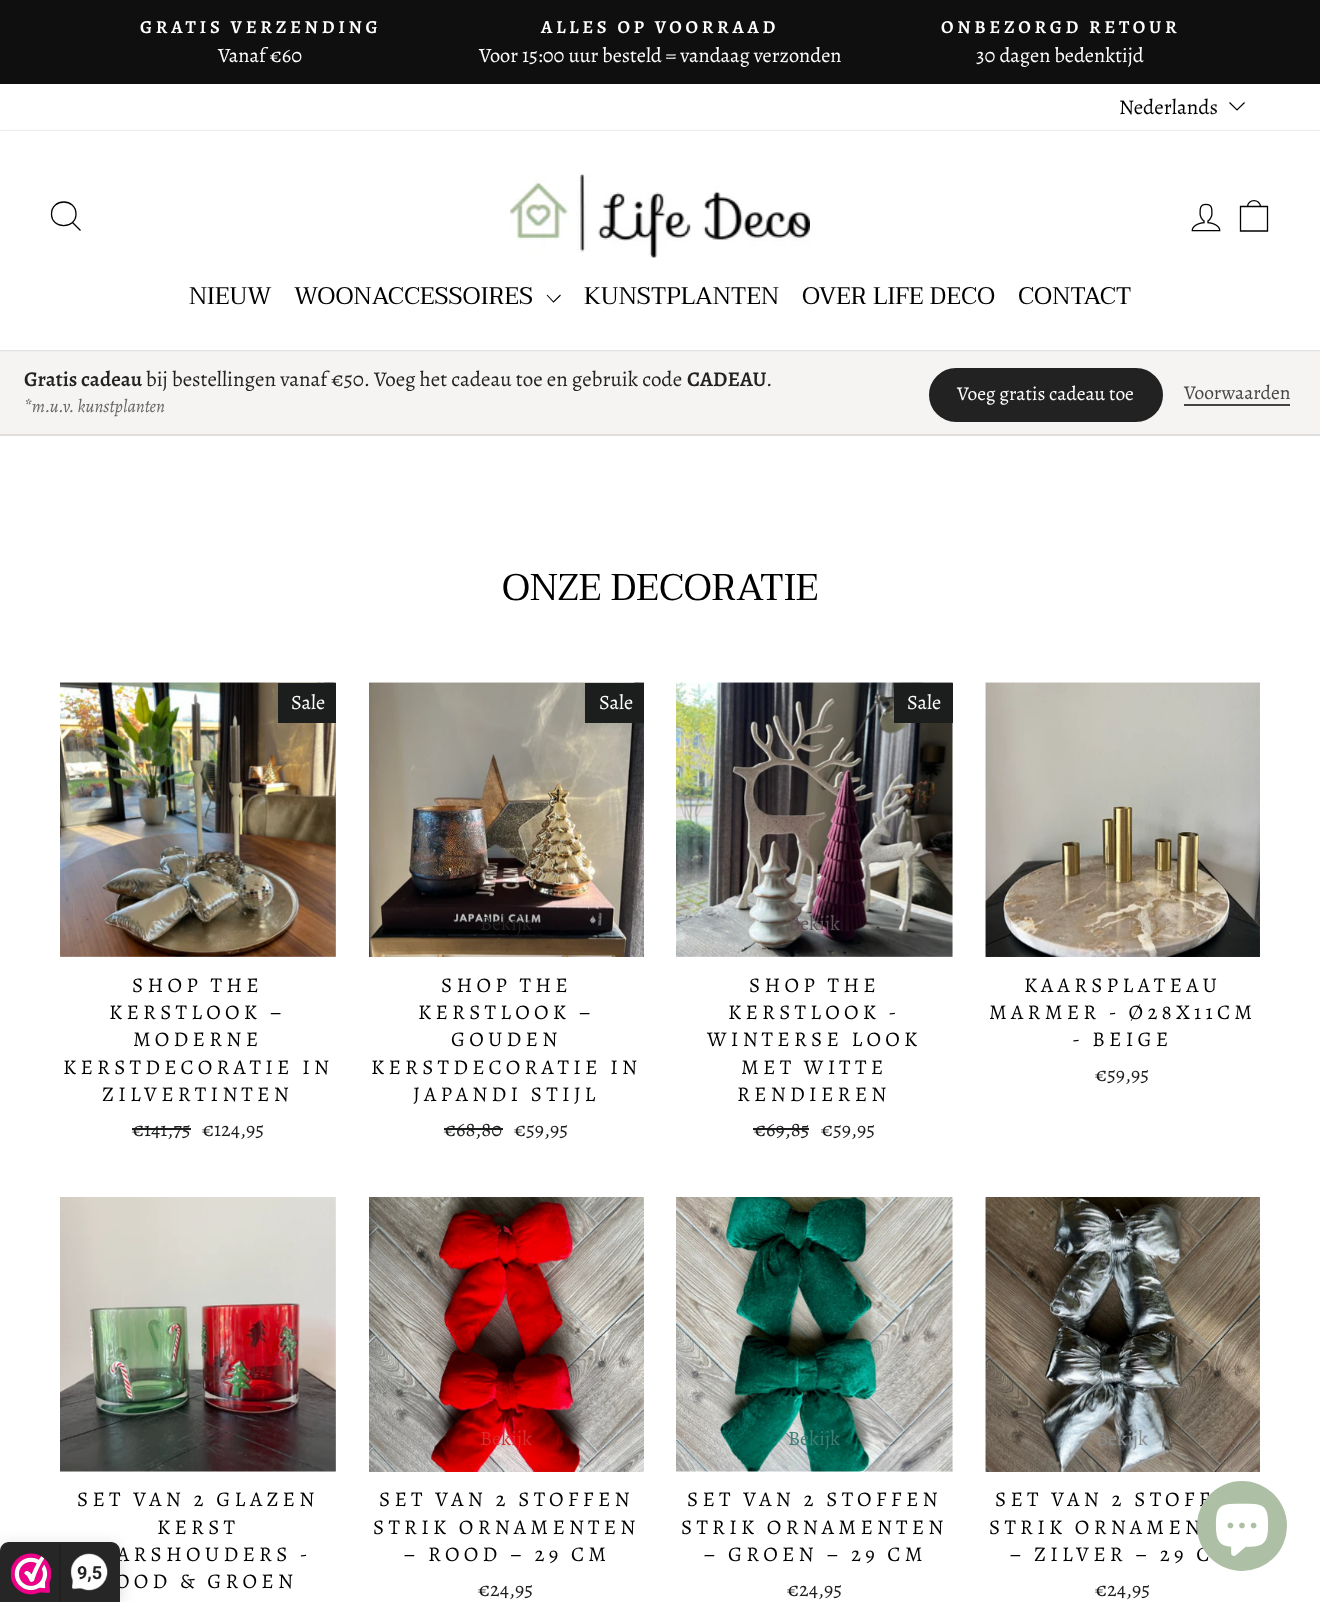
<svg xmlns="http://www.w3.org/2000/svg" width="1320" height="1602">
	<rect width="100%" height="100%" fill="#FFFFFF" />
	<rect x="0" y="0" width="1320" height="84" fill="#0F0F0F" />
	<text x="140" y="33" font-family="Alegreya" font-size="18.4" font-weight="600" letter-spacing="3.7" fill="#FFFFFF">GRATIS VERZENDING</text>
	<text x="218" y="62" font-family="Alegreya" font-size="20.4" fill="#FFFFFF">Vanaf €60</text>
	<text x="541" y="33" font-family="Alegreya" font-size="18.4" font-weight="600" letter-spacing="3.7" fill="#FFFFFF">ALLES OP VOORRAAD</text>
	<text x="479" y="62" font-family="Alegreya" font-size="20.4" fill="#FFFFFF">Voor 15:00 uur besteld = vandaag verzonden</text>
	<text x="941" y="33" font-family="Alegreya" font-size="18.4" font-weight="600" letter-spacing="3.7" fill="#FFFFFF">ONBEZORGD RETOUR</text>
	<text x="976" y="62" font-family="Alegreya" font-size="20.4" fill="#FFFFFF">30 dagen bedenktijd</text>
	<text x="1119" y="114" font-family="Alegreya" font-size="21" fill="#000000">Nederlands</text>
	<path d="M1229.5 102.5L1237 110L1244.5 102.5" fill="none" stroke="#000000" stroke-width="1.2" />
	<rect x="0" y="350" width="1320" height="84" fill="#F6F4F2" />
	<rect x="0" y="131" width="1320" height="219" fill="#000000" fill-opacity="0.2" filter="blur(1px)" />
	<rect x="0" y="131" width="1320" height="219" fill="#FFFFFF" />
	<path d="M76 214C76 229.5 51.5 229.5 51.5 214C51.5 198 76 198 76 214ZM80.5 230.5L72.5 222.5" fill="none" stroke="#000000" stroke-width="1.3" />
	<image x="510" y="174" width="300" height="84" href="assets/img1.png" />
	<image x="1191" y="203" width="30" height="29" href="assets/img2.png" />
	<path d="M1240.5 206.5H1267.5V231H1240.5ZM1247.5 207C1247.5 198.5 1260.5 198.5 1260.5 207" fill="none" stroke="#000000" stroke-width="1.3" />
	<g font-family="Taviraj" font-size="24" fill="#000000">
		<text x="189" y="304">NIEUW</text>
		<text x="294" y="304">WOONACCESSOIRES</text>
	</g>
	<path d="M547 295L553.5 302L560.5 295" fill="none" stroke="#000000" stroke-width="1.1" />
	<g font-family="Taviraj" font-size="24" fill="#000000">
		<text x="584" y="304">KUNSTPLANTEN</text>
		<text x="802" y="304">OVER LIFE DECO</text>
		<text x="1018" y="304">CONTACT</text>
	</g>
	<rect x="0" y="434" width="1320" height="2" fill="#E0DEDB" />
	<text x="24" y="386" font-family="Alegreya" font-size="21" font-weight="600" fill="#222222">Gratis cadeau</text>
	<text x="146" y="386" font-family="Alegreya" font-size="21" fill="#222222">bij bestellingen vanaf €50. Voeg het cadeau toe en gebruik code</text>
	<text x="687" y="386" font-family="Alegreya" font-size="21" font-weight="600" fill="#222222">CADEAU</text>
	<text x="766" y="386" font-family="Alegreya" font-size="21" fill="#222222">.</text>
	<text x="24" y="412" font-family="Alegreya" font-size="18" font-style="italic" fill="#666666">*m.u.v. kunstplanten</text>
	<rect x="930" y="369" width="232" height="52" rx="26" fill="#222222" stroke="#222222" stroke-width="2" />
	<text x="957" y="400" font-family="Alegreya" font-size="19.5" fill="#FFFFFF">Voeg gratis cadeau toe</text>
	<text x="1184" y="399" font-family="Alegreya" font-size="19.5" fill="#444444">Voorwaarden</text>
	<rect x="1184" y="404" width="106" height="2" fill="#444444" />
	<text x="502" y="600" font-family="Taviraj" font-size="37" fill="#000000">ONZE DECORATIE</text>
	<image x="60" y="682" width="276" height="275" href="assets/img3.png" />
	<rect x="278" y="683" width="58" height="40" fill="#1C1D1D" />
	<text x="291" y="709" font-family="Alegreya" font-size="20.4" fill="#FFFFFF">Sale</text>
	<g font-family="Alegreya" font-size="21" letter-spacing="4.25" fill="#000000">
		<text x="132" y="992">SHOP THE</text>
		<text x="109" y="1019">KERSTLOOK –</text>
		<text x="133" y="1046">MODERNE</text>
		<text x="63" y="1074">KERSTDECORATIE IN</text>
		<text x="102" y="1101">ZILVERTINTEN</text>
	</g>
	<text x="132" y="1136" font-family="Alegreya" font-size="20.4" fill="#1C1D1D">€141,75</text>
	<rect x="132" y="1128" width="59" height="2" fill="#1C1D1D" />
	<text x="202" y="1136" font-family="Alegreya" font-size="20.4" fill="#1C1D1D">€124,95</text>
	<image x="369" y="682" width="275" height="275" href="assets/img4.png" />
	<rect x="585" y="683" width="59" height="40" fill="#1C1D1D" />
	<text x="599" y="709" font-family="Alegreya" font-size="20.4" fill="#FFFFFF">Sale</text>
	<text x="480" y="930" font-family="Alegreya" font-size="20.4" fill="#222222">Bekijk</text>
	<g font-family="Alegreya" font-size="21" letter-spacing="4.25" fill="#000000">
		<text x="441" y="992">SHOP THE</text>
		<text x="418" y="1019">KERSTLOOK –</text>
		<text x="451" y="1046">GOUDEN</text>
		<text x="371" y="1074">KERSTDECORATIE IN</text>
		<text x="413" y="1101">JAPANDI STIJL</text>
	</g>
	<text x="444" y="1136" font-family="Alegreya" font-size="20.4" fill="#1C1D1D">€68,80</text>
	<rect x="444" y="1128" width="59" height="2" fill="#1C1D1D" />
	<text x="514" y="1136" font-family="Alegreya" font-size="20.4" fill="#1C1D1D">€59,95</text>
	<image x="676" y="682" width="277" height="275" href="assets/img5.png" />
	<rect x="894" y="683" width="59" height="40" fill="#1C1D1D" />
	<text x="907" y="709" font-family="Alegreya" font-size="20.4" fill="#FFFFFF">Sale</text>
	<text x="788" y="930" font-family="Alegreya" font-size="20.4" fill="#605359">Bekijk</text>
	<g font-family="Alegreya" font-size="21" letter-spacing="4.25" fill="#000000">
		<text x="749" y="992">SHOP THE</text>
		<text x="728" y="1019">KERSTLOOK -</text>
		<text x="707" y="1046">WINTERSE LOOK</text>
		<text x="741" y="1074">MET WITTE</text>
		<text x="737" y="1101">RENDIEREN</text>
	</g>
	<text x="754" y="1136" font-family="Alegreya" font-size="20.4" fill="#1C1D1D">€69,85</text>
	<rect x="753" y="1128" width="56" height="2" fill="#1C1D1D" />
	<text x="821" y="1136" font-family="Alegreya" font-size="20.4" fill="#1C1D1D">€59,95</text>
	<image x="985" y="682" width="275" height="275" href="assets/img6.png" />
	<text x="1127" y="930" font-family="Alegreya" font-size="20.4" fill="#AF9E88">i</text>
	<g font-family="Alegreya" font-size="21" letter-spacing="4.25" fill="#000000">
		<text x="1024" y="992">KAARSPLATEAU</text>
		<text x="989" y="1019">MARMER - Ø28X11CM</text>
		<text x="1072" y="1046">- BEIGE</text>
	</g>
	<text x="1095" y="1081" font-family="Alegreya" font-size="20.4" fill="#1C1D1D">€59,95</text>
	<image x="60" y="1197" width="276" height="275" href="assets/img7.png" />
	<g font-family="Alegreya" font-size="21" letter-spacing="4.25" fill="#000000">
		<text x="77" y="1506">SET VAN 2 GLAZEN</text>
		<text x="157" y="1534">KERST</text>
		<text x="117" y="1561">ARSHOUDERS -</text>
		<text x="115" y="1588">OOD &amp; GROEN</text>
	</g>
	<image x="369" y="1197" width="275" height="275" href="assets/img8.png" />
	<text x="480" y="1445" font-family="Alegreya" font-size="20.4" fill="#DC2C30">Bekijk</text>
	<g font-family="Alegreya" font-size="21" letter-spacing="4.25" fill="#000000">
		<text x="379" y="1506">SET VAN 2 STOFFEN</text>
		<text x="373" y="1534">STRIK ORNAMENTEN</text>
		<text x="403" y="1561">– ROOD – 29 CM</text>
	</g>
	<text x="478" y="1596" font-family="Alegreya" font-size="20.4" fill="#1C1D1D">€24,95</text>
	<image x="676" y="1197" width="277" height="275" href="assets/img9.png" />
	<text x="788" y="1445" font-family="Alegreya" font-size="20.4" fill="#3F7F74">Bekijk</text>
	<g font-family="Alegreya" font-size="21" letter-spacing="4.25" fill="#000000">
		<text x="687" y="1506">SET VAN 2 STOFFEN</text>
		<text x="681" y="1534">STRIK ORNAMENTEN</text>
		<text x="703" y="1561">– GROEN – 29 CM</text>
	</g>
	<text x="787" y="1596" font-family="Alegreya" font-size="20.4" fill="#1C1D1D">€24,95</text>
	<image x="985" y="1197" width="275" height="275" href="assets/img10.png" />
	<text x="1096" y="1445" font-family="Alegreya" font-size="20.4" fill="#8B8E8D">Bekijk</text>
	<g font-family="Alegreya" font-size="21" letter-spacing="4.25" fill="#000000">
		<text x="995" y="1506">SET VAN 2 STOFF</text>
		<text x="989" y="1534">STRIK ORNAMEN</text>
		<text x="1009" y="1561">– ZILVER – 29 C</text>
	</g>
	<text x="1095" y="1596" font-family="Alegreya" font-size="20.4" fill="#1C1D1D">€24,95</text>
	<circle cx="1242" cy="1526" r="45" fill="#ADC0A5" />
	<image x="1215" y="1503" width="54" height="53" href="assets/img11.png" />
	<rect x="0" y="1545" width="120" height="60" rx="9" fill="#000000" fill-opacity="0.15" filter="blur(7.5px)" />
	<path d="M9 1542H111C116 1542 120 1546 120 1551V1602H0V1551C0 1546 4 1542 9 1542Z" fill="#272626" />
	<image x="11" y="1553" width="40" height="42" href="assets/img12.png" />
	<rect x="59" y="1544" width="2" height="58" fill="#212020" />
	<image x="70" y="1553" width="38" height="38" href="assets/img13.png" />
	<text x="77" y="1579" font-family="Roboto" font-size="18" font-weight="700" fill="#222222">9,5</text>
</svg>
